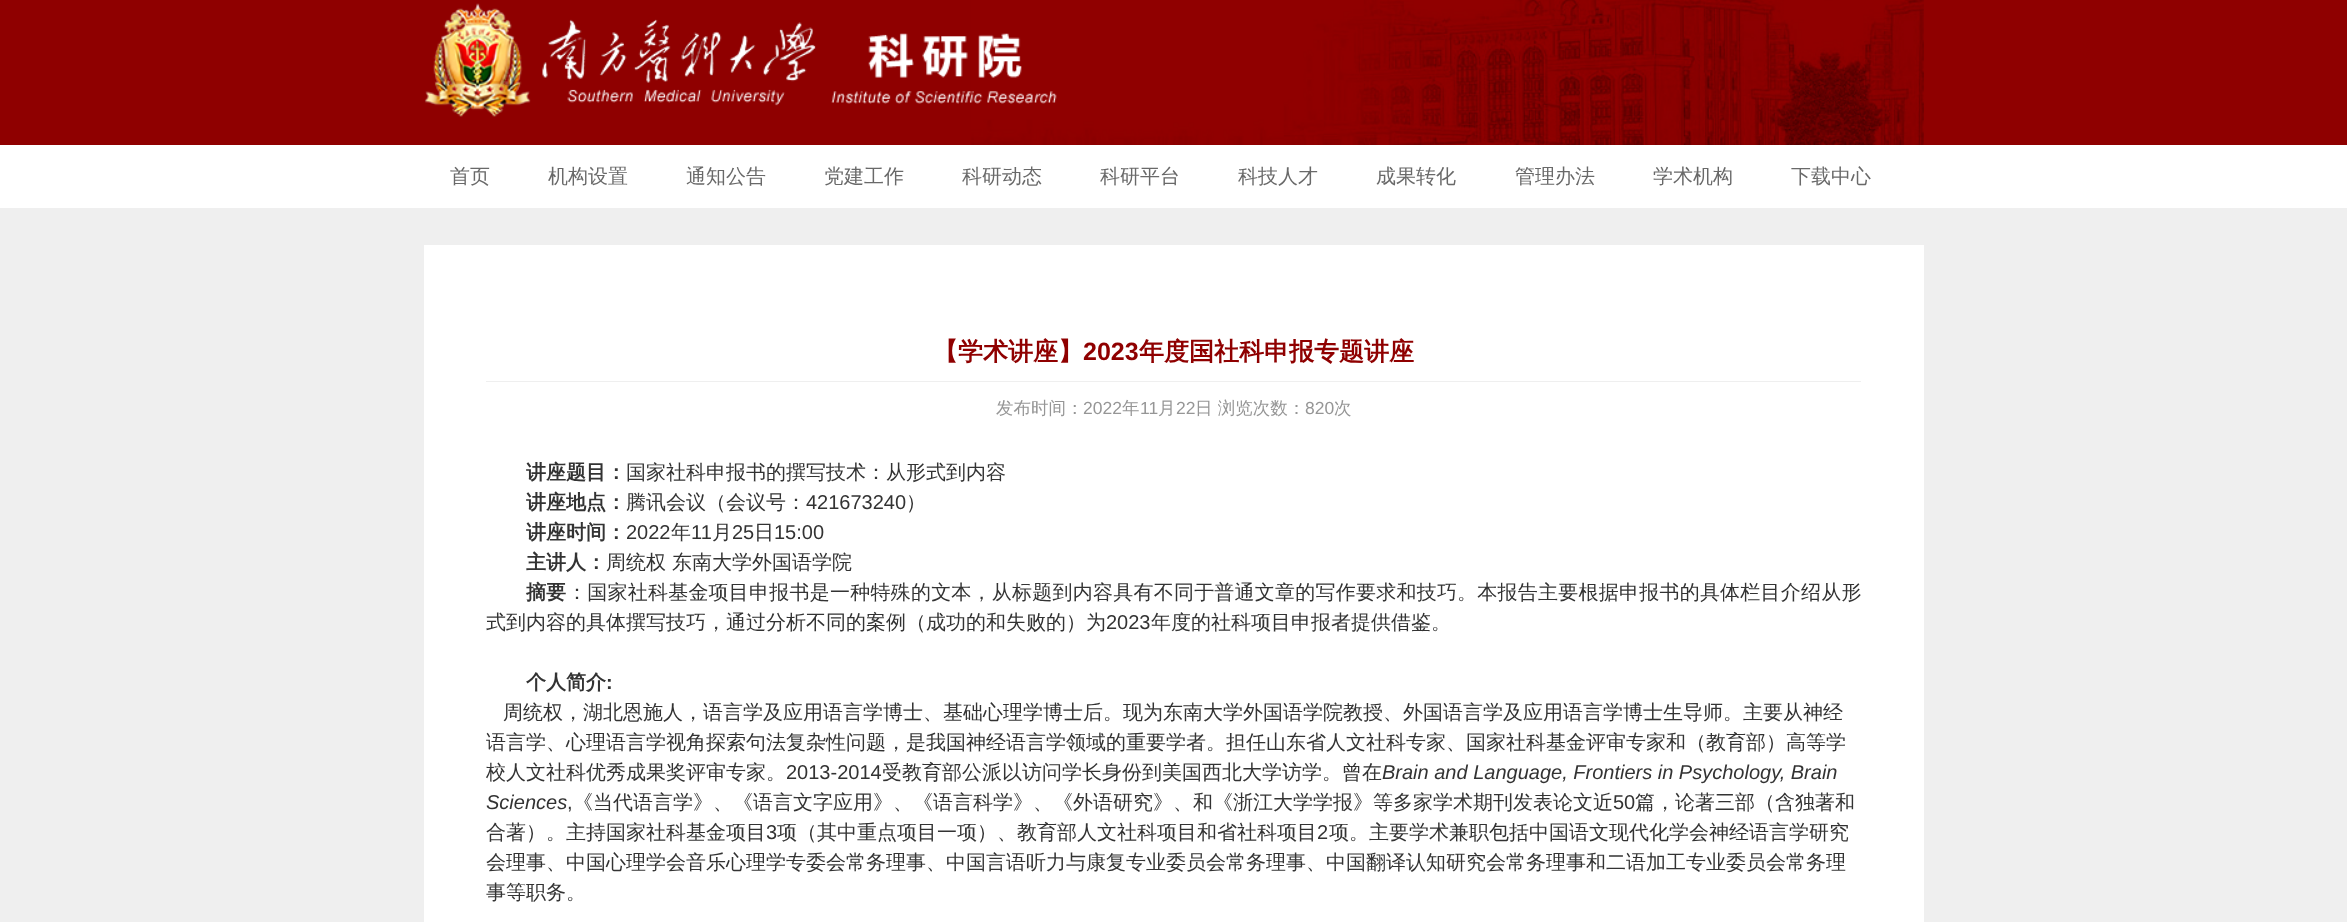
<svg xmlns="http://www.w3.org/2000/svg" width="2347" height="922">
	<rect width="100%" height="100%" fill="#EFEFEF" />
	<rect x="0" y="0" width="2347" height="145" fill="#8F0000" />
	<image x="971" y="0" width="953" height="145" href="assets/img1.png" />
	<image x="424" y="3" width="633" height="114" href="assets/img2.png" />
	<rect x="0" y="145" width="2347" height="63" fill="#FFFFFF" />
	<g font-family="WenQuanYi Zen Hei" font-size="20" font-weight="500" fill="#696969">
		<text x="450" y="183">首页</text>
		<text x="548" y="183">机构设置</text>
		<text x="686" y="183">通知公告</text>
		<text x="824" y="183">党建工作</text>
		<text x="962" y="183">科研动态</text>
		<text x="1100" y="183">科研平台</text>
		<text x="1238" y="183">科技人才</text>
		<text x="1376" y="183">成果转化</text>
		<text x="1515" y="183">管理办法</text>
		<text x="1653" y="183">学术机构</text>
		<text x="1791" y="183">下载中心</text>
	</g>
	<rect x="424" y="245" width="1500" height="677" fill="#FFFFFF" />
	<rect x="486" y="381" width="1375" height="1" fill="#EFEFEF" />
	<text x="933" y="360" font-family="WenQuanYi Zen Hei" font-size="25" font-weight="700" fill="#8F0000">【学术讲座】</text>
	<text x="1083" y="360" font-family="Liberation Sans" font-size="25" font-weight="700" fill="#8F0000">2023</text>
	<text x="1139" y="360" font-family="WenQuanYi Zen Hei" font-size="25" font-weight="700" fill="#8F0000">年度国社科申报专题讲座</text>
	<text x="996" y="414" font-family="WenQuanYi Zen Hei" font-size="17.5" font-weight="500" fill="#969696">发布时间：</text>
	<text x="1083" y="414" font-family="Liberation Sans" font-size="17.5" fill="#969696">2022</text>
	<text x="1122" y="414" font-family="WenQuanYi Zen Hei" font-size="17.5" font-weight="500" fill="#969696">年</text>
	<text x="1140" y="414" font-family="Liberation Sans" font-size="17.5" fill="#969696">11</text>
	<text x="1158" y="414" font-family="WenQuanYi Zen Hei" font-size="17.5" font-weight="500" fill="#969696">月</text>
	<text x="1176" y="414" font-family="Liberation Sans" font-size="17.5" fill="#969696">22</text>
	<text x="1195" y="414" font-family="WenQuanYi Zen Hei" font-size="17.5" font-weight="500" fill="#969696">日 浏览次数：</text>
	<text x="1305" y="414" font-family="Liberation Sans" font-size="17.5" fill="#969696">820</text>
	<text x="1334" y="414" font-family="WenQuanYi Zen Hei" font-size="17.5" font-weight="500" fill="#969696">次</text>
	<text x="526" y="479" font-family="WenQuanYi Zen Hei" font-size="20" font-weight="700" fill="#333333">讲座题目：</text>
	<text x="626" y="479" font-family="WenQuanYi Zen Hei" font-size="20" font-weight="500" fill="#333333">国家社科申报书的撰写技术：从形式到内容</text>
	<text x="526" y="509" font-family="WenQuanYi Zen Hei" font-size="20" font-weight="700" fill="#333333">讲座地点：</text>
	<text x="626" y="509" font-family="WenQuanYi Zen Hei" font-size="20" font-weight="500" fill="#333333">腾讯会议（会议号：</text>
	<text x="806" y="509" font-family="Liberation Sans" font-size="20" fill="#333333">421673240</text>
	<text x="906" y="509" font-family="WenQuanYi Zen Hei" font-size="20" font-weight="500" fill="#333333">）</text>
	<text x="526" y="539" font-family="WenQuanYi Zen Hei" font-size="20" font-weight="700" fill="#333333">讲座时间：</text>
	<text x="626" y="539" font-family="Liberation Sans" font-size="20" fill="#333333">2022</text>
	<text x="671" y="539" font-family="WenQuanYi Zen Hei" font-size="20" font-weight="500" fill="#333333">年</text>
	<text x="691" y="539" font-family="Liberation Sans" font-size="20" fill="#333333">11</text>
	<text x="712" y="539" font-family="WenQuanYi Zen Hei" font-size="20" font-weight="500" fill="#333333">月</text>
	<text x="732" y="539" font-family="Liberation Sans" font-size="20" fill="#333333">25</text>
	<text x="754" y="539" font-family="WenQuanYi Zen Hei" font-size="20" font-weight="500" fill="#333333">日</text>
	<text x="774" y="539" font-family="Liberation Sans" font-size="20" fill="#333333">15:00</text>
	<text x="526" y="569" font-family="WenQuanYi Zen Hei" font-size="20" font-weight="700" fill="#333333">主讲人：</text>
	<g font-family="WenQuanYi Zen Hei" font-size="20" font-weight="500" fill="#333333">
		<text x="606" y="569">周统权</text>
		<text x="672" y="569">东南大学外国语学院</text>
	</g>
	<text x="526" y="599" font-family="WenQuanYi Zen Hei" font-size="20" font-weight="700" fill="#333333">摘要</text>
	<text x="567" y="599" font-family="WenQuanYi Zen Hei" font-size="20" font-weight="500" letter-spacing="0.23" fill="#333333">：国家社科基金项目申报书是一种特殊的文本，从标题到内容具有不同于普通文章的写作要求和技巧。本报告主要根据申报书的具体栏目介绍从形</text>
	<text x="486" y="629" font-family="WenQuanYi Zen Hei" font-size="20" font-weight="500" fill="#333333">式到内容的具体撰写技巧，通过分析不同的案例（成功的和失败的）为</text>
	<text x="1106" y="629" font-family="Liberation Sans" font-size="20" fill="#333333">2023</text>
	<text x="1151" y="629" font-family="WenQuanYi Zen Hei" font-size="20" font-weight="500" fill="#333333">年度的社科项目申报者提供借鉴。</text>
	<text x="526" y="689" font-family="WenQuanYi Zen Hei" font-size="20" font-weight="700" fill="#333333">个人简介</text>
	<text x="606" y="689" font-family="Liberation Sans" font-size="20" font-weight="700" fill="#333333">:</text>
	<g font-family="WenQuanYi Zen Hei" font-size="20" font-weight="500" fill="#333333">
		<text x="503" y="719">周统权，湖北恩施人，语言学及应用语言学博士、基础心理学博士后。现为东南大学外国语学院教授、外国语言学及应用语言学博士生导师。主要从神经</text>
		<text x="486" y="749">语言学、心理语言学视角探索句法复杂性问题，是我国神经语言学领域的重要学者。担任山东省人文社科专家、国家社科基金评审专家和（教育部）高等学</text>
		<text x="486" y="779">校人文社科优秀成果奖评审专家。</text>
	</g>
	<text x="786" y="779" font-family="Liberation Sans" font-size="20" fill="#333333">2013-2014</text>
	<text x="882" y="779" font-family="WenQuanYi Zen Hei" font-size="20" font-weight="500" fill="#333333">受教育部公派以访问学长身份到美国西北大学访学。曾在</text>
	<g font-family="Liberation Sans" font-size="20" font-style="italic" fill="#333333">
		<text x="1382" y="779">Brain and Language, Frontiers in Psychology, Brain</text>
		<text x="486" y="809">Sciences</text>
	</g>
	<text x="567" y="809" font-family="Liberation Sans" font-size="20" fill="#333333">,</text>
	<text x="573" y="809" font-family="WenQuanYi Zen Hei" font-size="20" font-weight="500" fill="#333333">《当代语言学》、《语言文字应用》、《语言科学》、《外语研究》、和《浙江大学学报》等多家学术期刊发表论文近</text>
	<text x="1613" y="809" font-family="Liberation Sans" font-size="20" fill="#333333">50</text>
	<g font-family="WenQuanYi Zen Hei" font-size="20" font-weight="500" fill="#333333">
		<text x="1635" y="809">篇，论著三部（含独著和</text>
		<text x="486" y="839">合著）。主持国家社科基金项目</text>
	</g>
	<text x="766" y="839" font-family="Liberation Sans" font-size="20" fill="#333333">3</text>
	<text x="777" y="839" font-family="WenQuanYi Zen Hei" font-size="20" font-weight="500" fill="#333333">项（其中重点项目一项）、教育部人文社科项目和省社科项目</text>
	<text x="1317" y="839" font-family="Liberation Sans" font-size="20" fill="#333333">2</text>
	<g font-family="WenQuanYi Zen Hei" font-size="20" font-weight="500" fill="#333333">
		<text x="1329" y="839">项。主要学术兼职包括中国语文现代化学会神经语言学研究</text>
		<text x="486" y="869">会理事、中国心理学会音乐心理学专委会常务理事、中国言语听力与康复专业委员会常务理事、中国翻译认知研究会常务理事和二语加工专业委员会常务理</text>
		<text x="486" y="899">事等职务。</text>
	</g>
</svg>
